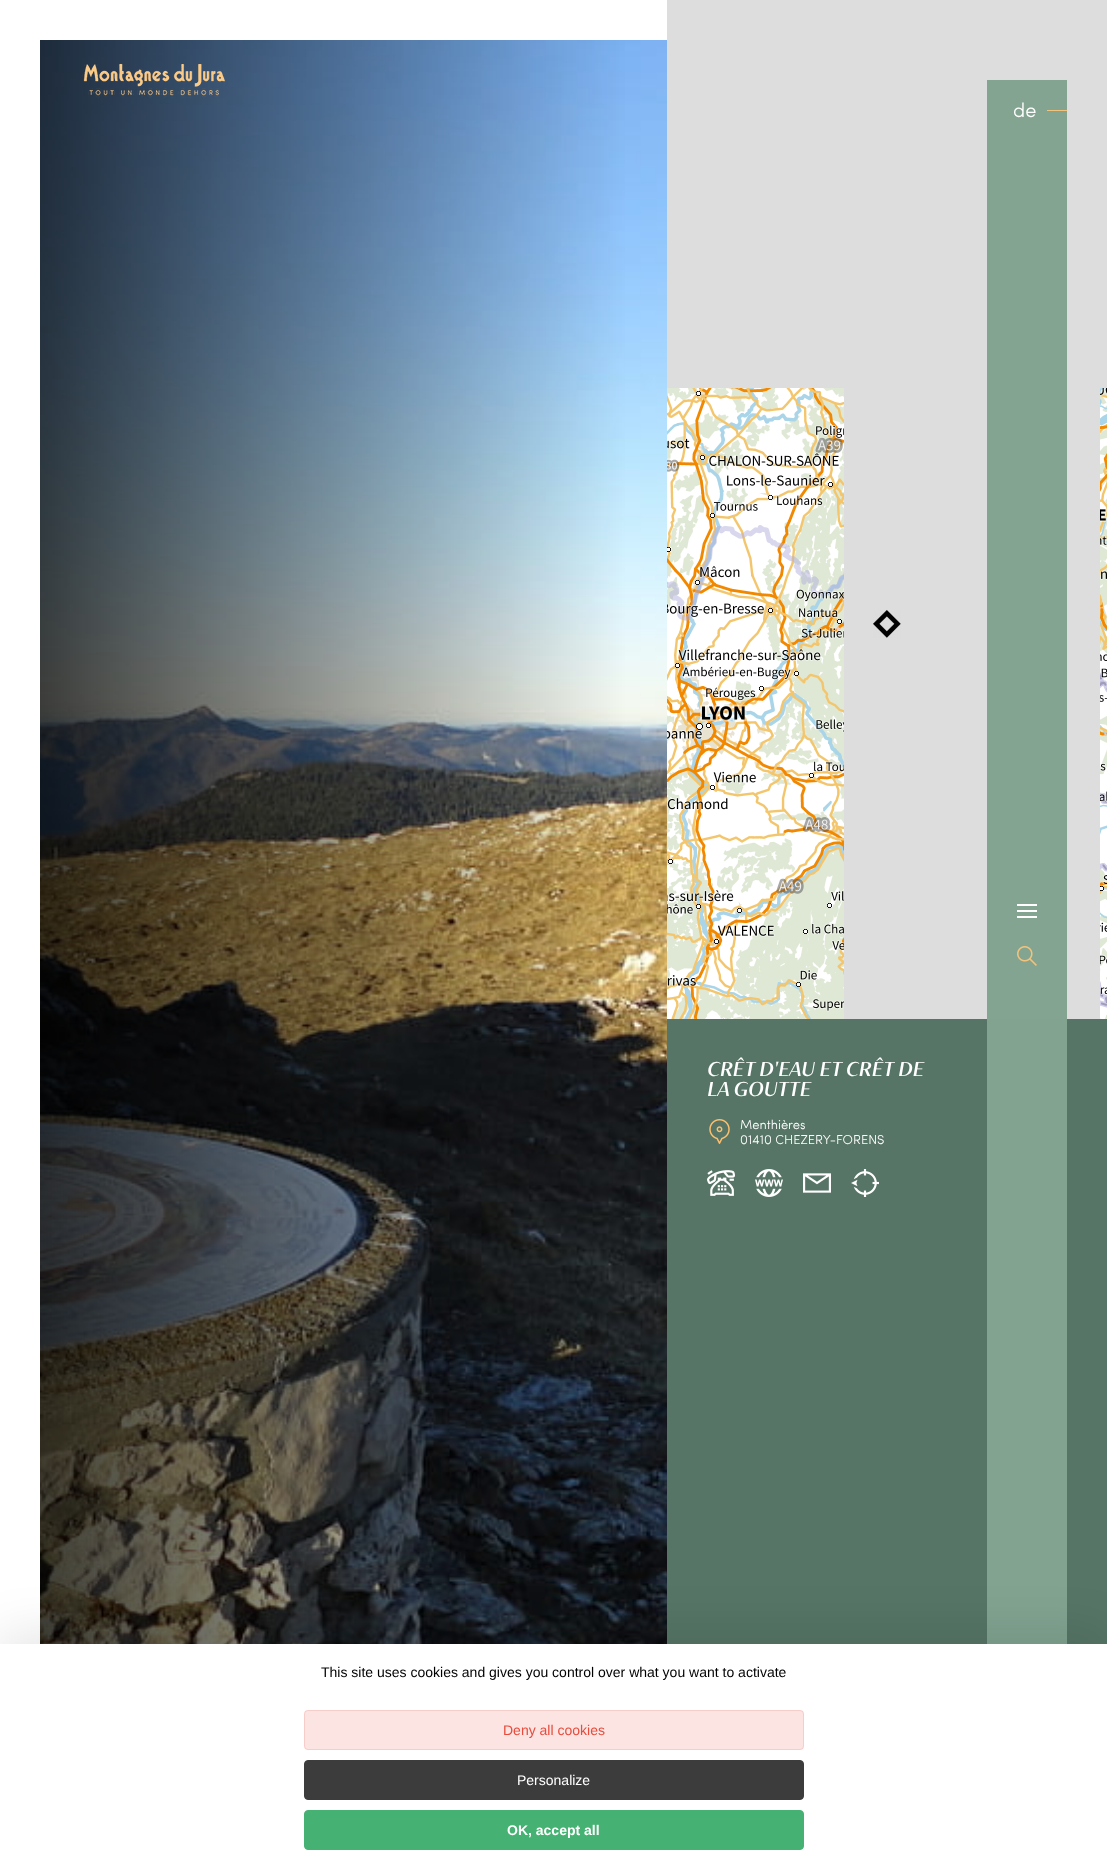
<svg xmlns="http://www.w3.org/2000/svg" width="1107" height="1870">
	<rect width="100%" height="100%" fill="#FFFFFF" />
	<image x="40" y="40" width="627" height="1604" href="assets/img3.png" />
	<image x="82" y="63" width="144" height="35" href="assets/img1.png" />
	<rect x="667" y="0" width="440" height="1019" fill="#DDDDDD" />
	<rect x="987" y="80" width="80" height="939" fill="#82A491" />
	<text x="1013" y="117" font-family="Sofia" font-size="20" font-weight="300" fill="#FFFFFF">de</text>
	<rect x="1047" y="110" width="20" height="1" fill="#F3C27B" />
	<rect x="1017" y="904" width="20" height="2" fill="#FFFFFF" />
	<rect x="1017" y="910" width="20" height="2" fill="#FFFFFF" />
	<rect x="1017" y="916" width="20" height="2" fill="#FFFFFF" />
	<image x="1017" y="946" width="20" height="20" href="assets/img2.png" />
	<rect x="667" y="1247" width="440" height="397" fill="#567566" />
	<rect x="987" y="1247" width="80" height="397" fill="#81A390" />
	<image x="667" y="388" width="177" height="256" href="assets/img4.png" />
	<image x="1100" y="388" width="7" height="256" href="assets/img5.png" />
	<image x="667" y="644" width="177" height="256" href="assets/img6.png" />
	<image x="1100" y="644" width="7" height="256" href="assets/img7.png" />
	<image x="667" y="900" width="177" height="119" href="assets/img8.png" />
	<image x="1100" y="900" width="7" height="119" href="assets/img9.png" />
	<image x="873" y="610" width="28" height="28" href="assets/img10.png" />
	<rect x="667" y="1019" width="440" height="228" fill="#567566" />
	<g font-family="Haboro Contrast" font-size="20" font-weight="600" font-style="italic" fill="#FFFFFF">
		<text x="707" y="1076">CRÊT D'EAU ET CRÊT DE</text>
		<text x="707" y="1096">LA GOUTTE</text>
	</g>
	<image x="709" y="1119" width="21" height="25" href="assets/img11.png" />
	<g font-family="Sofia" font-size="13" font-weight="300" fill="#FFFFFF">
		<text x="740" y="1129">Menthières</text>
		<text x="740" y="1144">01410 CHEZERY-FORENS</text>
	</g>
	<image x="707" y="1170" width="28" height="26" href="assets/img12.png" />
	<image x="755" y="1169" width="28" height="28" href="assets/img13.png" />
	<image x="803" y="1173" width="28" height="20" href="assets/img14.png" />
	<image x="851" y="1169" width="28" height="28" href="assets/img15.png" />
	<rect x="987" y="1019" width="80" height="228" fill="#81A390" />
	<rect x="0" y="1634" width="1107" height="226" fill="#000000" fill-opacity="0.1" filter="blur(25px)" />
	<rect x="0" y="1644" width="1107" height="226" fill="#FFFFFF" />
	<text x="321" y="1677" font-family="Liberation Sans" font-size="14" fill="#000000">This site uses cookies and gives you control over what you want to activate</text>
	<rect x="304" y="1710" width="500" height="40" rx="4" fill="#FBE4E2" />
	<rect x="304.5" y="1710.5" width="499" height="39" rx="3.5" fill="none" stroke="#E74C3C" stroke-opacity="0.15" />
	<text x="503" y="1735" font-family="Liberation Sans" font-size="14" fill="#E74C3C">Deny all cookies</text>
	<rect x="304.5" y="1760.5" width="499" height="39" rx="3.5" fill="#3C3C3C" stroke="#3C3C3C" />
	<text x="517" y="1785" font-family="Liberation Sans" font-size="14" fill="#FFFFFF">Personalize</text>
	<rect x="304.5" y="1810.5" width="499" height="39" rx="3.5" fill="#45B172" stroke="#45B172" />
	<text x="507" y="1835" font-family="Liberation Sans" font-size="14" font-weight="700" fill="#FFFFFF">OK, accept all</text>
</svg>
